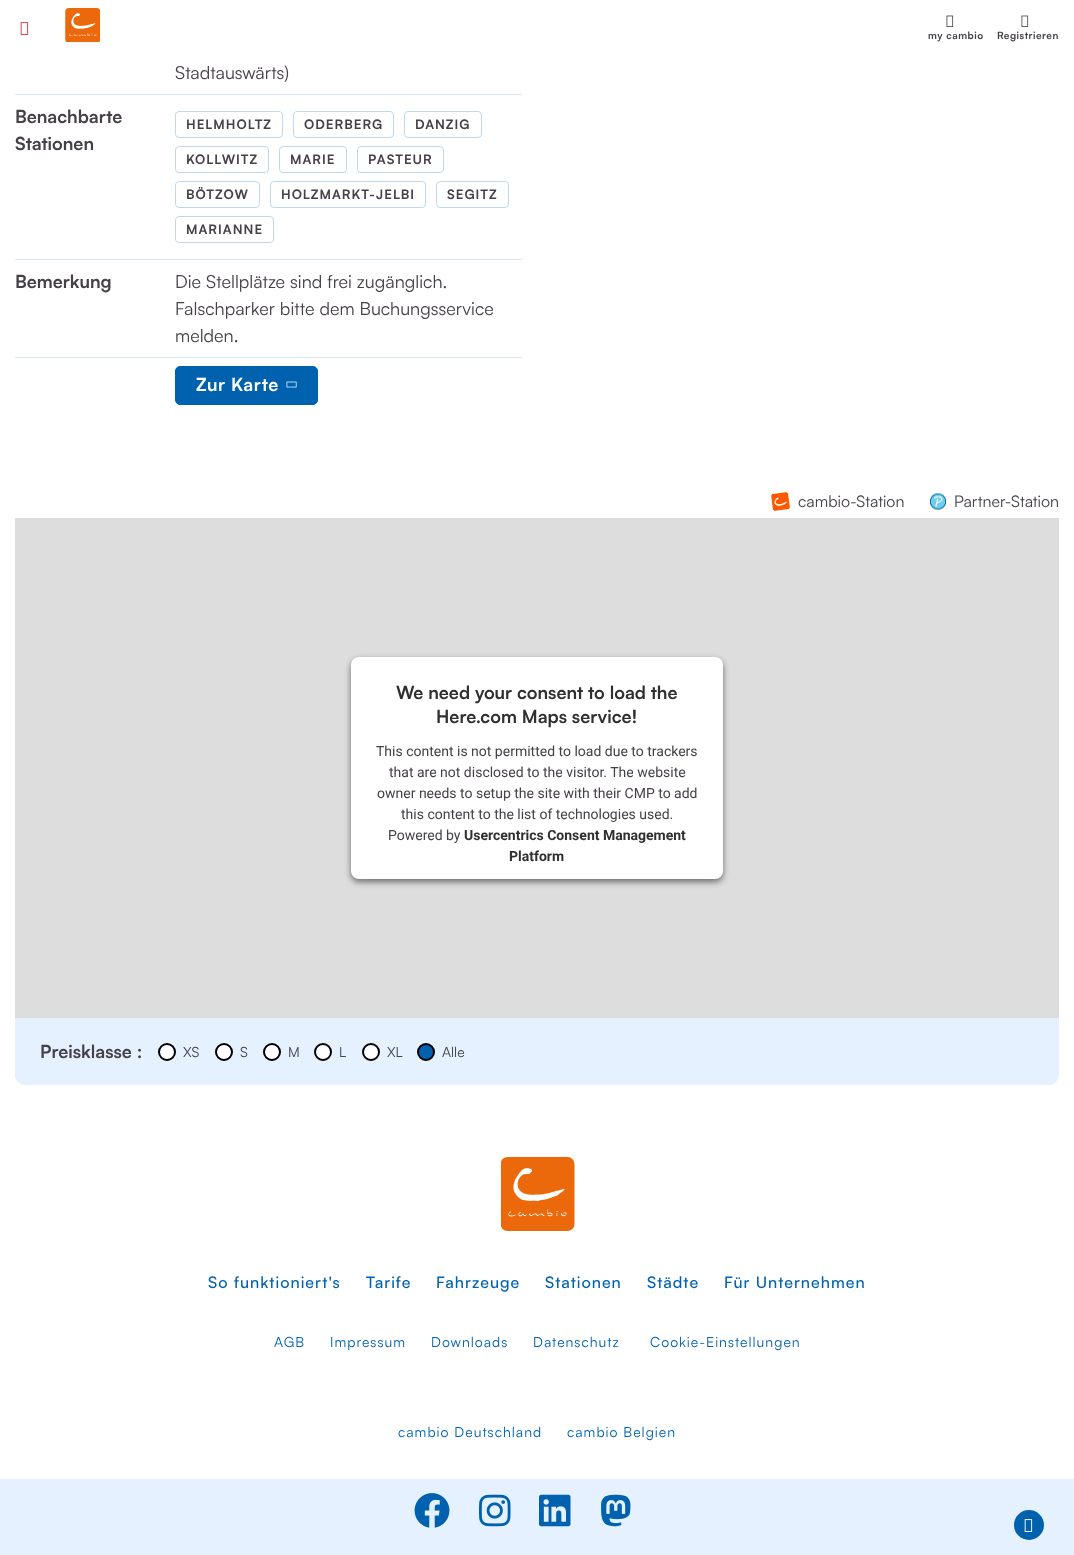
<svg xmlns="http://www.w3.org/2000/svg" width="1074" height="1555">
	<rect width="100%" height="100%" fill="#FFFFFF" />
	<image x="20" y="22" width="9" height="13" href="assets/img1.png" />
	<image x="65" y="8" width="35" height="34" href="assets/img2.png" />
	<image x="946" y="15" width="8" height="12" href="assets/img3.png" />
	<text x="928" y="39" font-family="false" font-size="10" font-weight="700" letter-spacing="0.5" fill="#464048">my cambio</text>
	<image x="1021" y="15" width="8" height="12" href="assets/img3.png" />
	<text x="997" y="39" font-family="false" font-size="10" font-weight="700" letter-spacing="0.5" fill="#464048">Registrieren</text>
	<rect x="15" y="94" width="507" height="1" fill="#DAE6F8" />
	<text x="175" y="79" font-family="false" font-size="18" fill="#464048">Stadtauswärts)</text>
	<rect x="15" y="259" width="507" height="1" fill="#DAE6F8" />
	<g font-family="false" font-size="18" font-weight="700" fill="#464048">
		<text x="15" y="123">Benachbarte</text>
		<text x="15" y="150">Stationen</text>
	</g>
	<rect x="175.5" y="111.5" width="107" height="26" rx="3.5" fill="none" stroke="#BFD8EB" />
	<text x="186" y="129" font-family="false" font-size="13" font-weight="700" letter-spacing="1" fill="#464048">HELMHOLTZ</text>
	<rect x="293.5" y="111.5" width="100" height="26" rx="3.5" fill="none" stroke="#BFD8EB" />
	<text x="304" y="129" font-family="false" font-size="13" font-weight="700" letter-spacing="1" fill="#464048">ODERBERG</text>
	<rect x="404.5" y="111.5" width="77" height="26" rx="3.5" fill="none" stroke="#BFD8EB" />
	<text x="415" y="129" font-family="false" font-size="13" font-weight="700" letter-spacing="1" fill="#464048">DANZIG</text>
	<rect x="175.5" y="146.5" width="93" height="26" rx="3.5" fill="none" stroke="#BFD8EB" />
	<text x="186" y="164" font-family="false" font-size="13" font-weight="700" letter-spacing="1" fill="#464048">KOLLWITZ</text>
	<rect x="279.5" y="146.5" width="67" height="26" rx="3.5" fill="none" stroke="#BFD8EB" />
	<text x="290" y="164" font-family="false" font-size="13" font-weight="700" letter-spacing="1" fill="#464048">MARIE</text>
	<rect x="357.5" y="146.5" width="86" height="26" rx="3.5" fill="none" stroke="#BFD8EB" />
	<text x="368" y="164" font-family="false" font-size="13" font-weight="700" letter-spacing="1" fill="#464048">PASTEUR</text>
	<rect x="175.5" y="181.5" width="84" height="26" rx="3.5" fill="none" stroke="#BFD8EB" />
	<text x="186" y="199" font-family="false" font-size="13" font-weight="700" letter-spacing="1" fill="#464048">BÖTZOW</text>
	<rect x="270.5" y="181.5" width="155" height="26" rx="3.5" fill="none" stroke="#BFD8EB" />
	<text x="281" y="199" font-family="false" font-size="13" font-weight="700" letter-spacing="1" fill="#464048">HOLZMARKT-JELBI</text>
	<rect x="436.5" y="181.5" width="72" height="26" rx="3.5" fill="none" stroke="#BFD8EB" />
	<text x="447" y="199" font-family="false" font-size="13" font-weight="700" letter-spacing="1" fill="#464048">SEGITZ</text>
	<rect x="175.5" y="216.5" width="98" height="26" rx="3.5" fill="none" stroke="#BFD8EB" />
	<text x="186" y="234" font-family="false" font-size="13" font-weight="700" letter-spacing="1" fill="#464048">MARIANNE</text>
	<rect x="15" y="357" width="507" height="1" fill="#DAE6F8" />
	<text x="15" y="288" font-family="false" font-size="18" font-weight="700" fill="#464048">Bemerkung</text>
	<g font-family="false" font-size="18" fill="#464048">
		<text x="175" y="288">Die Stellplätze sind frei zugänglich.</text>
		<text x="175" y="315">Falschparker bitte dem Buchungsservice</text>
		<text x="175" y="342">melden.</text>
	</g>
	<rect x="175.5" y="366.5" width="142" height="38" rx="4.5" fill="#0062AF" stroke="#0062AF" />
	<text x="196" y="391" font-family="false" font-size="18" font-weight="700" letter-spacing="0.5" fill="#FFFFFF">Zur Karte</text>
	<image x="286" y="381" width="11" height="7" href="assets/img4.png" />
	<image x="771" y="492" width="19" height="19" href="assets/img5.png" />
	<text x="798" y="507" font-family="false" font-size="16" fill="#464048">cambio-Station</text>
	<image x="930" y="493" width="16" height="17" href="assets/img6.png" />
	<text x="954" y="507" font-family="false" font-size="16" fill="#464048">Partner-Station</text>
	<rect x="15" y="518" width="1044" height="500" fill="#DDDDDD" />
	<rect x="351" y="660" width="372" height="222" rx="8" fill="#000000" fill-opacity="0.5" filter="blur(3px)" />
	<rect x="351" y="657" width="372" height="222" rx="8" fill="#FFFFFF" />
	<g font-family="false" font-size="18" font-weight="700" fill="#303030">
		<text x="396" y="699">We need your consent to load the</text>
		<text x="436" y="723">Here.com Maps service!</text>
	</g>
	<g font-family="Roboto" font-size="14" fill="#464048">
		<text x="376" y="756">This content is not permitted to load due to trackers</text>
		<text x="389" y="777">that are not disclosed to the visitor. The website</text>
		<text x="377" y="798">owner needs to setup the site with their CMP to add</text>
		<text x="401" y="819">this content to the list of technologies used.</text>
		<text x="388" y="840">Powered by</text>
	</g>
	<g font-family="Roboto" font-size="14" font-weight="700" fill="#303030">
		<text x="464" y="840">Usercentrics Consent Management</text>
		<text x="509" y="861">Platform</text>
	</g>
	<path d="M15 1018H1059V1075C1059 1080.5 1054.5 1085 1049 1085H25C19.5 1085 15 1080.5 15 1075Z" fill="#E5F1FF" />
	<text x="40" y="1058" font-family="false" font-size="18" font-weight="700" fill="#464048">Preisklasse :</text>
	<circle cx="167" cy="1052" r="8" fill="#FFFFFF" stroke="#000000" stroke-width="2" />
	<text x="183" y="1057" font-family="false" font-size="14" fill="#464048">XS</text>
	<circle cx="224" cy="1052" r="8" fill="#FFFFFF" stroke="#000000" stroke-width="2" />
	<text x="240" y="1057" font-family="false" font-size="14" fill="#464048">S</text>
	<circle cx="272" cy="1052" r="8" fill="#FFFFFF" stroke="#000000" stroke-width="2" />
	<text x="288" y="1057" font-family="false" font-size="14" fill="#464048">M</text>
	<circle cx="323" cy="1052" r="8" fill="#FFFFFF" stroke="#000000" stroke-width="2" />
	<text x="339" y="1057" font-family="false" font-size="14" fill="#464048">L</text>
	<circle cx="371" cy="1052" r="8" fill="#FFFFFF" stroke="#000000" stroke-width="2" />
	<text x="387" y="1057" font-family="false" font-size="14" fill="#464048">XL</text>
	<circle cx="426" cy="1052" r="8" fill="#0062AF" stroke="#000000" stroke-width="2" />
	<text x="442" y="1057" font-family="false" font-size="14" fill="#464048">Alle</text>
	<image x="501" y="1157" width="74" height="74" href="assets/img7.png" />
	<g font-family="Satoshi" font-size="16" font-weight="500" letter-spacing="1" fill="#0062AF">
		<text x="208" y="1288">So funktioniert's</text>
		<text x="366" y="1288">Tarife</text>
		<text x="436" y="1288">Fahrzeuge</text>
		<text x="545" y="1288">Stationen</text>
		<text x="647" y="1288">Städte</text>
		<text x="724" y="1288">Für Unternehmen</text>
	</g>
	<g font-family="false" font-size="14" letter-spacing="1" fill="#0062AF">
		<text x="274" y="1347">AGB</text>
		<text x="330" y="1347">Impressum</text>
		<text x="431" y="1347">Downloads</text>
		<text x="533" y="1347">Datenschutz</text>
		<text x="650" y="1347">Cookie-Einstellungen</text>
		<text x="398" y="1437">cambio Deutschland</text>
		<text x="567" y="1437">cambio Belgien</text>
	</g>
	<rect x="0" y="1479" width="1074" height="76" fill="#E5F1FF" />
	<image x="414" y="1493" width="36" height="35" href="assets/img8.png" />
	<image x="479" y="1494" width="32" height="33" href="assets/img9.png" />
	<image x="539" y="1494" width="32" height="33" href="assets/img10.png" />
	<image x="601" y="1494" width="30" height="33" href="assets/img11.png" />
	<circle cx="1029" cy="1525" r="15" fill="#0062AF" />
	<image x="1024" y="1519" width="9" height="13" href="assets/img12.png" />
</svg>
